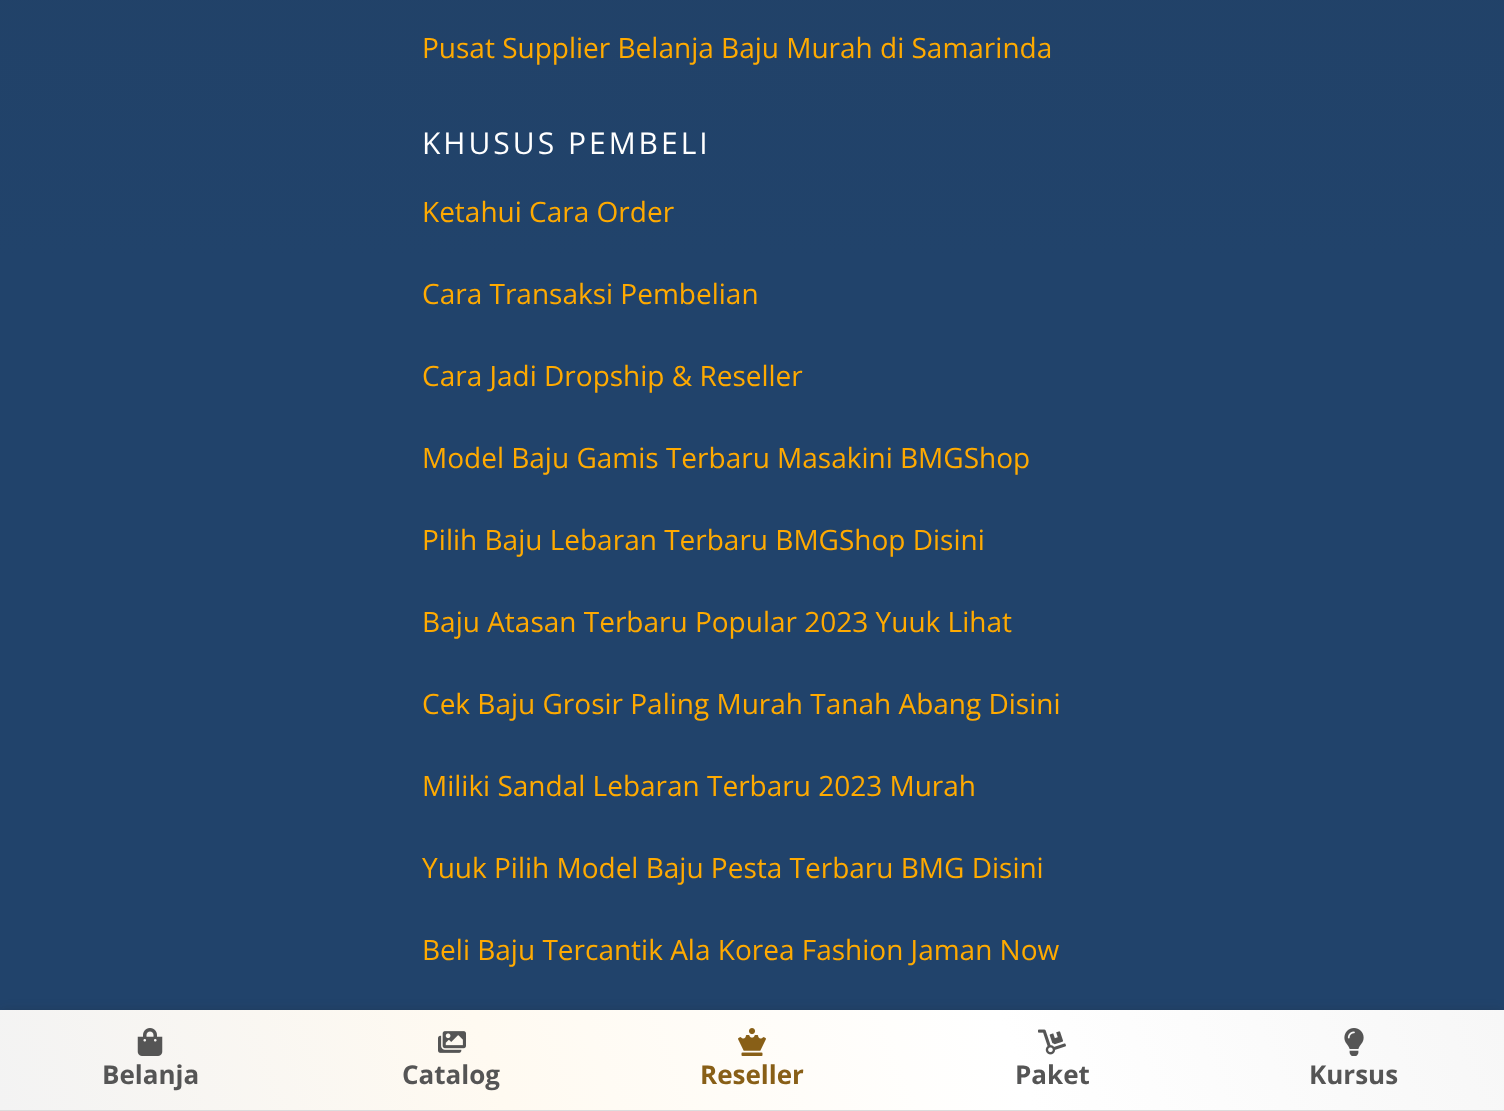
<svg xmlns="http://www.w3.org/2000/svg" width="1504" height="1111">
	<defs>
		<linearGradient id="g1" gradientUnits="userSpaceOnUse" x1="752" y1="-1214" x2="752" y2="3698"><stop offset="0" stop-color="#233D5D" /><stop offset="0.3" stop-color="#21436B" /></linearGradient>
		<linearGradient id="g2" gradientUnits="userSpaceOnUse" x1="72" y1="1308" x2="1432" y2="812"><stop offset="0" stop-color="#F3F3F3" /><stop offset="0.33" stop-color="#FFFAF1" /><stop offset="0.67" stop-color="#FFFFFF" /><stop offset="1" stop-color="#F7F7F7" /></linearGradient>
	</defs>
	<rect width="100%" height="100%" fill="#FFFFFF" />
	<rect x="0" y="0" width="1504" height="1010" fill="url(#g1)" />
	<text x="422" y="58" font-family="Open Sans" font-size="28" fill="#FFAA00">Pusat Supplier Belanja Baju Murah di Samarinda</text>
	<text x="422" y="154" font-family="Open Sans" font-size="30" letter-spacing="3" fill="#FFFFFF">KHUSUS PEMBELI</text>
	<g font-family="Open Sans" font-size="28" fill="#FFAA00">
		<text x="422" y="222">Ketahui Cara Order</text>
		<text x="422" y="304">Cara Transaksi Pembelian</text>
		<text x="422" y="386">Cara Jadi Dropship &amp; Reseller</text>
		<text x="422" y="468">Model Baju Gamis Terbaru Masakini BMGShop</text>
		<text x="422" y="550">Pilih Baju Lebaran Terbaru BMGShop Disini</text>
		<text x="422" y="632">Baju Atasan Terbaru Popular 2023 Yuuk Lihat</text>
		<text x="422" y="714">Cek Baju Grosir Paling Murah Tanah Abang Disini</text>
		<text x="422" y="796">Miliki Sandal Lebaran Terbaru 2023 Murah</text>
		<text x="422" y="878">Yuuk Pilih Model Baju Pesta Terbaru BMG Disini</text>
		<text x="422" y="960">Beli Baju Tercantik Ala Korea Fashion Jaman Now</text>
	</g>
	<rect x="0" y="1012" width="1504" height="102" fill="#202124" fill-opacity="0.28" filter="blur(6px)" />
	<rect x="0" y="1010" width="1504" height="100" fill="url(#g2)" />
	<rect x="0" y="1110" width="1504" height="1" fill="#DCDCDC" />
	<image x="137" y="1028" width="26" height="28" href="assets/img1.png" />
	<text x="102" y="1084" font-family="Open Sans" font-size="26" font-weight="700" fill="#555555">Belanja</text>
	<image x="438" y="1031" width="28" height="22" href="assets/img2.png" />
	<text x="402" y="1084" font-family="Open Sans" font-size="26" font-weight="700" fill="#555555">Catalog</text>
	<image x="738" y="1028" width="28" height="28" href="assets/img3.png" />
	<text x="700" y="1084" font-family="Open Sans" font-size="26" font-weight="700" fill="#885F17">Reseller</text>
	<image x="1038" y="1029" width="28" height="26" href="assets/img4.png" />
	<text x="1015" y="1084" font-family="Open Sans" font-size="26" font-weight="700" fill="#555555">Paket</text>
	<image x="1344" y="1028" width="20" height="28" href="assets/img5.png" />
	<text x="1309" y="1084" font-family="Open Sans" font-size="26" font-weight="700" fill="#555555">Kursus</text>
</svg>
